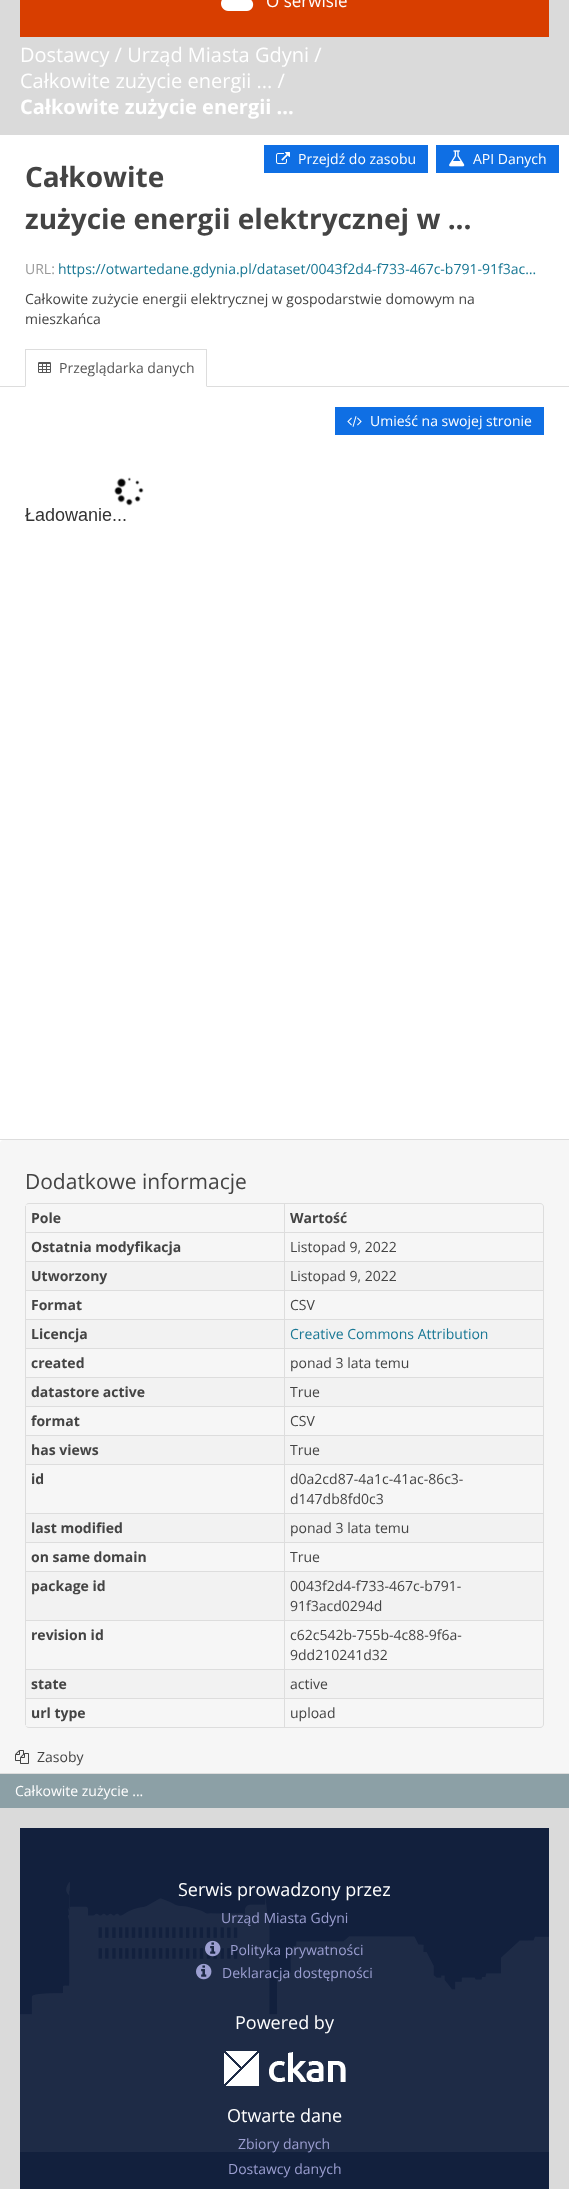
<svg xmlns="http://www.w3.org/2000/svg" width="569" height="2189">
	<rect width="100%" height="100%" fill="#DADADA" />
	<rect x="20" y="0" width="529" height="37" fill="#D83E00" />
	<image x="221" y="0" width="33" height="11" href="assets/img1.png" />
	<text x="266" y="7" font-family="Open Sans" font-size="17" fill="#FFFFFF">O serwisie</text>
	<g font-family="Open Sans" font-size="20" fill="#FFFFFF">
		<text x="20" y="62">Dostawcy / Urząd Miasta Gdyni /</text>
		<text x="20" y="88">Całkowite zużycie energii ... /</text>
	</g>
	<text x="20" y="114" font-family="Open Sans" font-size="20" font-weight="700" fill="#FFFFFF">Całkowite zużycie energii ...</text>
	<rect x="0" y="135" width="569" height="1008" fill="#FFFFFF" />
	<rect x="0" y="1139" width="569" height="1" fill="#DDDDDD" />
	<rect x="264" y="145" width="164" height="28" fill="#0F6FE4" />
	<image x="276" y="152" width="14" height="12" href="assets/img2.png" />
	<text x="298" y="164" font-family="Open Sans" font-size="14" fill="#FFFFFF">Przejdź do zasobu</text>
	<rect x="436" y="145" width="123" height="28" fill="#0F6FE4" />
	<image x="449" y="150" width="16" height="17" href="assets/img3.png" />
	<text x="473" y="164" font-family="Open Sans" font-size="14" fill="#FFFFFF">API Danych</text>
	<g font-family="Open Sans" font-size="28" font-weight="700" fill="#444444">
		<text x="25" y="187">Całkowite</text>
		<text x="25" y="229">zużycie energii elektrycznej w ...</text>
	</g>
	<text x="25" y="274" font-family="Open Sans" font-size="14" fill="#999999">URL:</text>
	<text x="58" y="274" font-family="Open Sans" font-size="14" fill="#187794">https://otwartedane.gdynia.pl/dataset/0043f2d4-f733-467c-b791-91f3ac…</text>
	<g font-family="Open Sans" font-size="14" fill="#444444">
		<text x="25" y="304">Całkowite zużycie energii elektrycznej w gospodarstwie domowym na</text>
		<text x="25" y="324">mieszkańca</text>
	</g>
	<rect x="0" y="386" width="569" height="1" fill="#DDDDDD" />
	<rect x="25" y="386" width="182" height="1" fill="#FFFFFF" />
	<rect x="25" y="349" width="182" height="1" fill="#DDDDDD" />
	<path d="M207 349V387L206 386V350Z" fill="#DDDDDD" />
	<path d="M25 387V349L26 350V386Z" fill="#DDDDDD" />
	<image x="38" y="362" width="13" height="11" href="assets/img4.png" />
	<text x="59" y="373" font-family="Open Sans" font-size="14" fill="#555555">Przeglądarka danych</text>
	<rect x="335" y="407" width="209" height="28" fill="#0F6FE4" />
	<image x="347" y="416" width="15" height="11" href="assets/img5.png" />
	<text x="370" y="426" font-family="Open Sans" font-size="14" fill="#FFFFFF">Umieść na swojej stronie</text>
	<image x="25" y="477" width="119" height="44" href="assets/img6.png" />
	<path d="M3 1140H569V1774H0V1143C0 1141.5 1.5 1140 3 1140Z" fill="#F6F6F6" />
	<text x="25" y="1189" font-family="Open Sans" font-size="21" fill="#444444">Dodatkowe informacje</text>
	<path d="M29 1203H540C542 1203 544 1205 544 1207V1724C544 1726 542 1728 540 1728H29C27 1728 25 1726 25 1724V1207C25 1205 27 1203 29 1203ZM29 1204H540C542 1204 543 1205 543 1207V1724C543 1726 542 1727 540 1727H29C27 1727 25 1726 25 1724V1207C25 1205 27 1204 29 1204Z" fill="#DDDDDD" fill-rule="evenodd" />
	<rect x="25" y="1206" width="1" height="26" fill="#DDDDDD" />
	<text x="31" y="1223" font-family="Open Sans" font-size="14" font-weight="700" fill="#444444">Pole</text>
	<rect x="284" y="1204" width="1" height="28" fill="#DDDDDD" />
	<text x="290" y="1223" font-family="Open Sans" font-size="14" font-weight="700" fill="#444444">Wartość</text>
	<rect x="25" y="1232" width="518" height="1" fill="#DDDDDD" />
	<rect x="25" y="1232" width="1" height="29" fill="#DDDDDD" />
	<text x="31" y="1252" font-family="Open Sans" font-size="14" font-weight="700" fill="#444444">Ostatnia modyfikacja</text>
	<rect x="284" y="1232" width="1" height="29" fill="#DDDDDD" />
	<text x="290" y="1252" font-family="Open Sans" font-size="14" fill="#444444">Listopad 9, 2022</text>
	<rect x="26" y="1262" width="258" height="28" fill="#F2F2F2" />
	<rect x="25" y="1261" width="518" height="1" fill="#DDDDDD" />
	<rect x="25" y="1261" width="1" height="29" fill="#DDDDDD" />
	<text x="31" y="1281" font-family="Open Sans" font-size="14" font-weight="700" fill="#444444">Utworzony</text>
	<rect x="285" y="1262" width="258" height="28" fill="#F2F2F2" />
	<rect x="284" y="1261" width="1" height="29" fill="#DDDDDD" />
	<text x="290" y="1281" font-family="Open Sans" font-size="14" fill="#444444">Listopad 9, 2022</text>
	<rect x="25" y="1290" width="518" height="1" fill="#DDDDDD" />
	<rect x="25" y="1290" width="1" height="29" fill="#DDDDDD" />
	<text x="31" y="1310" font-family="Open Sans" font-size="14" font-weight="700" fill="#444444">Format</text>
	<rect x="284" y="1290" width="1" height="29" fill="#DDDDDD" />
	<text x="290" y="1310" font-family="Open Sans" font-size="14" fill="#444444">CSV</text>
	<rect x="26" y="1320" width="258" height="28" fill="#F2F2F2" />
	<rect x="25" y="1319" width="518" height="1" fill="#DDDDDD" />
	<rect x="25" y="1319" width="1" height="29" fill="#DDDDDD" />
	<text x="31" y="1339" font-family="Open Sans" font-size="14" font-weight="700" fill="#444444">Licencja</text>
	<rect x="285" y="1320" width="258" height="28" fill="#F2F2F2" />
	<rect x="284" y="1319" width="1" height="29" fill="#DDDDDD" />
	<text x="290" y="1339" font-family="Open Sans" font-size="14" fill="#187794">Creative Commons Attribution</text>
	<rect x="25" y="1348" width="518" height="1" fill="#DDDDDD" />
	<rect x="25" y="1348" width="1" height="29" fill="#DDDDDD" />
	<text x="31" y="1368" font-family="Open Sans" font-size="14" font-weight="700" fill="#444444">created</text>
	<rect x="284" y="1348" width="1" height="29" fill="#DDDDDD" />
	<text x="290" y="1368" font-family="Open Sans" font-size="14" fill="#444444">ponad 3 lata temu</text>
	<rect x="26" y="1378" width="258" height="28" fill="#F2F2F2" />
	<rect x="25" y="1377" width="518" height="1" fill="#DDDDDD" />
	<rect x="25" y="1377" width="1" height="29" fill="#DDDDDD" />
	<text x="31" y="1397" font-family="Open Sans" font-size="14" font-weight="700" fill="#444444">datastore active</text>
	<rect x="285" y="1378" width="258" height="28" fill="#F2F2F2" />
	<rect x="284" y="1377" width="1" height="29" fill="#DDDDDD" />
	<text x="290" y="1397" font-family="Open Sans" font-size="14" fill="#444444">True</text>
	<rect x="25" y="1406" width="518" height="1" fill="#DDDDDD" />
	<rect x="25" y="1406" width="1" height="29" fill="#DDDDDD" />
	<text x="31" y="1426" font-family="Open Sans" font-size="14" font-weight="700" fill="#444444">format</text>
	<rect x="284" y="1406" width="1" height="29" fill="#DDDDDD" />
	<text x="290" y="1426" font-family="Open Sans" font-size="14" fill="#444444">CSV</text>
	<rect x="26" y="1436" width="258" height="28" fill="#F2F2F2" />
	<rect x="25" y="1435" width="518" height="1" fill="#DDDDDD" />
	<rect x="25" y="1435" width="1" height="29" fill="#DDDDDD" />
	<text x="31" y="1455" font-family="Open Sans" font-size="14" font-weight="700" fill="#444444">has views</text>
	<rect x="285" y="1436" width="258" height="28" fill="#F2F2F2" />
	<rect x="284" y="1435" width="1" height="29" fill="#DDDDDD" />
	<text x="290" y="1455" font-family="Open Sans" font-size="14" fill="#444444">True</text>
	<rect x="25" y="1464" width="518" height="1" fill="#DDDDDD" />
	<rect x="25" y="1464" width="1" height="49" fill="#DDDDDD" />
	<text x="31" y="1484" font-family="Open Sans" font-size="14" font-weight="700" fill="#444444">id</text>
	<rect x="284" y="1464" width="1" height="49" fill="#DDDDDD" />
	<g font-family="Open Sans" font-size="14" fill="#444444">
		<text x="290" y="1484">d0a2cd87-4a1c-41ac-86c3-</text>
		<text x="290" y="1504">d147db8fd0c3</text>
	</g>
	<rect x="26" y="1514" width="258" height="28" fill="#F2F2F2" />
	<rect x="25" y="1513" width="518" height="1" fill="#DDDDDD" />
	<rect x="25" y="1513" width="1" height="29" fill="#DDDDDD" />
	<text x="31" y="1533" font-family="Open Sans" font-size="14" font-weight="700" fill="#444444">last modified</text>
	<rect x="285" y="1514" width="258" height="28" fill="#F2F2F2" />
	<rect x="284" y="1513" width="1" height="29" fill="#DDDDDD" />
	<text x="290" y="1533" font-family="Open Sans" font-size="14" fill="#444444">ponad 3 lata temu</text>
	<rect x="25" y="1542" width="518" height="1" fill="#DDDDDD" />
	<rect x="25" y="1542" width="1" height="29" fill="#DDDDDD" />
	<text x="31" y="1562" font-family="Open Sans" font-size="14" font-weight="700" fill="#444444">on same domain</text>
	<rect x="284" y="1542" width="1" height="29" fill="#DDDDDD" />
	<text x="290" y="1562" font-family="Open Sans" font-size="14" fill="#444444">True</text>
	<rect x="26" y="1572" width="258" height="48" fill="#F2F2F2" />
	<rect x="25" y="1571" width="518" height="1" fill="#DDDDDD" />
	<rect x="25" y="1571" width="1" height="49" fill="#DDDDDD" />
	<text x="31" y="1591" font-family="Open Sans" font-size="14" font-weight="700" fill="#444444">package id</text>
	<rect x="285" y="1572" width="258" height="48" fill="#F2F2F2" />
	<rect x="284" y="1571" width="1" height="49" fill="#DDDDDD" />
	<g font-family="Open Sans" font-size="14" fill="#444444">
		<text x="290" y="1591">0043f2d4-f733-467c-b791-</text>
		<text x="290" y="1611">91f3acd0294d</text>
	</g>
	<rect x="25" y="1620" width="518" height="1" fill="#DDDDDD" />
	<rect x="25" y="1620" width="1" height="49" fill="#DDDDDD" />
	<text x="31" y="1640" font-family="Open Sans" font-size="14" font-weight="700" fill="#444444">revision id</text>
	<rect x="284" y="1620" width="1" height="49" fill="#DDDDDD" />
	<g font-family="Open Sans" font-size="14" fill="#444444">
		<text x="290" y="1640">c62c542b-755b-4c88-9f6a-</text>
		<text x="290" y="1660">9dd210241d32</text>
	</g>
	<rect x="26" y="1670" width="258" height="28" fill="#F2F2F2" />
	<rect x="25" y="1669" width="518" height="1" fill="#DDDDDD" />
	<rect x="25" y="1669" width="1" height="29" fill="#DDDDDD" />
	<text x="31" y="1689" font-family="Open Sans" font-size="14" font-weight="700" fill="#444444">state</text>
	<rect x="285" y="1670" width="258" height="28" fill="#F2F2F2" />
	<rect x="284" y="1669" width="1" height="29" fill="#DDDDDD" />
	<text x="290" y="1689" font-family="Open Sans" font-size="14" fill="#444444">active</text>
	<rect x="25" y="1698" width="518" height="1" fill="#DDDDDD" />
	<rect x="25" y="1698" width="1" height="27" fill="#DDDDDD" />
	<text x="31" y="1718" font-family="Open Sans" font-size="14" font-weight="700" fill="#444444">url type</text>
	<rect x="284" y="1698" width="1" height="29" fill="#DDDDDD" />
	<text x="290" y="1718" font-family="Open Sans" font-size="14" fill="#444444">upload</text>
	<rect x="0" y="1773" width="569" height="1" fill="#DDDDDD" />
	<image x="15" y="1750" width="14" height="14" href="assets/img7.png" />
	<text x="37" y="1762" font-family="Open Sans" font-size="14" fill="#444444">Zasoby</text>
	<rect x="0" y="1774" width="569" height="34" fill="#8CA0A6" />
	<text x="15" y="1796" font-family="Open Sans" font-size="14" fill="#FFFFFF">Całkowite zużycie ...</text>
	<rect x="20" y="1828" width="529" height="361" fill="#12203D" />
	<image x="20" y="1882" width="529" height="270" href="assets/img8.png" />
	<text x="178" y="1896" font-family="Open Sans" font-size="18" fill="#FFFFFF">Serwis prowadzony przez</text>
	<text x="221" y="1923" font-family="Open Sans" font-size="14" fill="#9C9FD1">Urząd Miasta Gdyni</text>
	<image x="205" y="1940" width="16" height="17" href="assets/img9.png" />
	<text x="230" y="1955" font-family="Open Sans" font-size="14" fill="#9C9FD1">Polityka prywatności</text>
	<image x="196" y="1963" width="16" height="17" href="assets/img10.png" />
	<text x="222" y="1978" font-family="Open Sans" font-size="14" fill="#9C9FD1">Deklaracja dostępności</text>
	<text x="235" y="2029" font-family="Open Sans" font-size="18" fill="#FFFFFF">Powered by</text>
	<image x="224" y="2051" width="122" height="35" href="assets/img11.png" />
	<text x="227" y="2122" font-family="Open Sans" font-size="18" fill="#FFFFFF">Otwarte dane</text>
	<g font-family="Open Sans" font-size="14" fill="#9C9FD1">
		<text x="238" y="2149">Zbiory danych</text>
		<text x="228" y="2174">Dostawcy danych</text>
	</g>
</svg>
